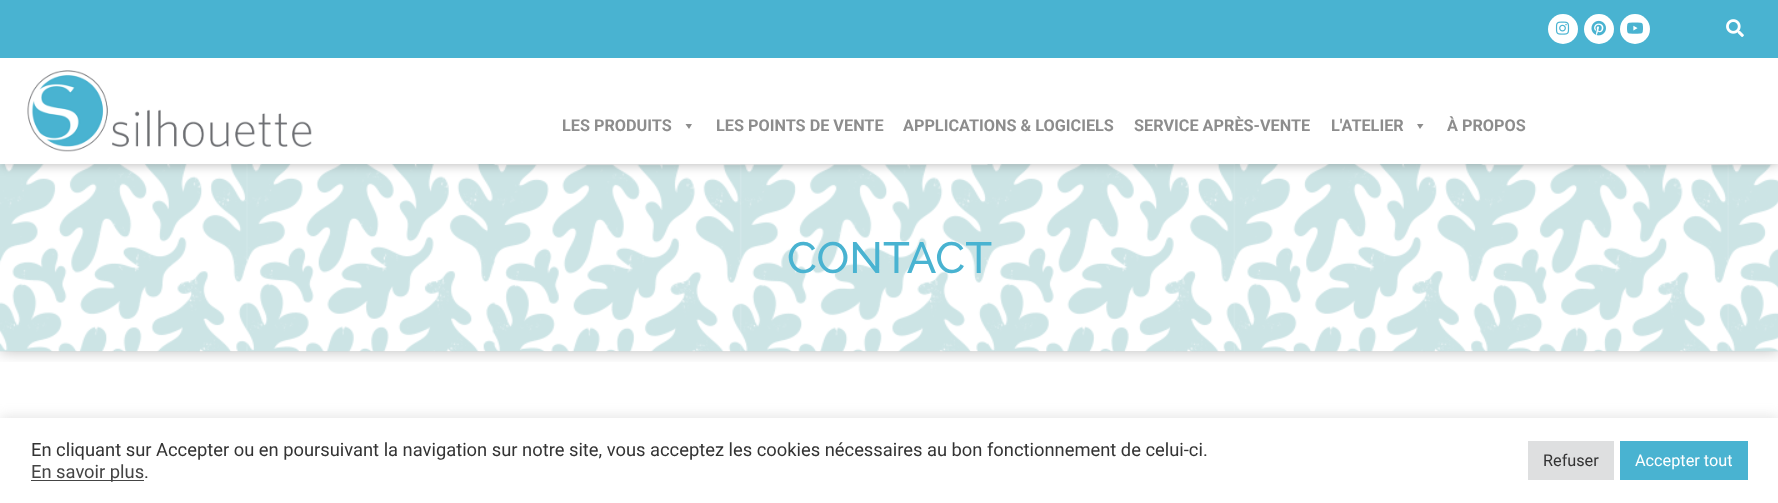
<svg xmlns="http://www.w3.org/2000/svg" width="1778" height="503">
	<defs>
		<clipPath id="clip1"><rect x="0" y="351" width="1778" height="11" /></clipPath>
	</defs>
	<rect width="100%" height="100%" fill="#FFFFFF" />
	<g clip-path="url(#clip1)">
		<rect x="0" y="164" width="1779" height="187" fill="#000000" fill-opacity="0.27" filter="blur(7.5px)" />
	</g>
	<image x="0" y="164" width="1778" height="188" href="assets/img6.png" />
	<rect x="0" y="0" width="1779" height="164" fill="#000000" fill-opacity="0.3" filter="blur(6px)" />
	<rect x="0" y="58" width="1778" height="106" fill="#FFFFFF" />
	<rect x="0" y="0" width="1778" height="58" fill="#49B3D1" />
	<circle cx="1563" cy="29" r="15" fill="#FFFFFF" />
	<image x="1555" y="21" width="15" height="14" href="assets/img1.png" />
	<circle cx="1599" cy="29" r="15" fill="#FFFFFF" />
	<image x="1591" y="20" width="15" height="16" href="assets/img2.png" />
	<circle cx="1635" cy="29" r="15" fill="#FFFFFF" />
	<image x="1627" y="22" width="16" height="12" href="assets/img3.png" />
	<image x="1726" y="19" width="18" height="18" href="assets/img4.png" />
	<image x="27" y="70" width="285" height="82" href="assets/img5.png" />
	<text x="562" y="131" font-family="Roboto" font-size="16.25" font-weight="700" fill="#8D8D8D">LES PRODUITS</text>
	<path d="M692 124L689 129L685.5 124Z" fill="#8D8D8D" />
	<g font-family="Roboto" font-size="16.25" font-weight="700" fill="#8D8D8D">
		<text x="716" y="131">LES POINTS DE VENTE</text>
		<text x="903" y="131">APPLICATIONS &amp; LOGICIELS</text>
		<text x="1134" y="131">SERVICE APRÈS-VENTE</text>
		<text x="1331" y="131">L'ATELIER</text>
	</g>
	<path d="M1423.5 124L1420 129L1417 124Z" fill="#8D8D8D" />
	<text x="1447" y="131" font-family="Roboto" font-size="16.25" font-weight="700" fill="#8D8D8D">À PROPOS</text>
	<text x="787" y="273" font-family="Raleway" font-size="43.75" font-weight="500" fill="#49B3D1">CONTACT</text>
	<rect x="0" y="416" width="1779" height="87" fill="#ACABAB" fill-opacity="0.3" filter="blur(6px)" />
	<rect x="0" y="418" width="1778" height="85" fill="#FFFFFF" />
	<text x="31" y="456" font-family="Roboto" font-size="18.33" fill="#333333">En cliquant sur Accepter ou en poursuivant la navigation sur notre site, vous acceptez les cookies nécessaires au bon fonctionnement de celui-ci.</text>
	<rect x="31" y="480" width="113" height="1" fill="#444444" />
	<text x="31" y="478" font-family="Roboto" font-size="18.33" fill="#444444">En savoir plus</text>
	<text x="144" y="478" font-family="Roboto" font-size="18.33" fill="#333333">.</text>
	<rect x="1528" y="441" width="86" height="39" fill="#DEDFE0" />
	<text x="1543" y="466" font-family="Roboto" font-size="16.25" fill="#333333">Refuser</text>
	<rect x="1620" y="441" width="128" height="39" fill="#49B3D1" />
	<text x="1635" y="466" font-family="Roboto" font-size="16.25" fill="#FFFFFF">Accepter tout</text>
</svg>
